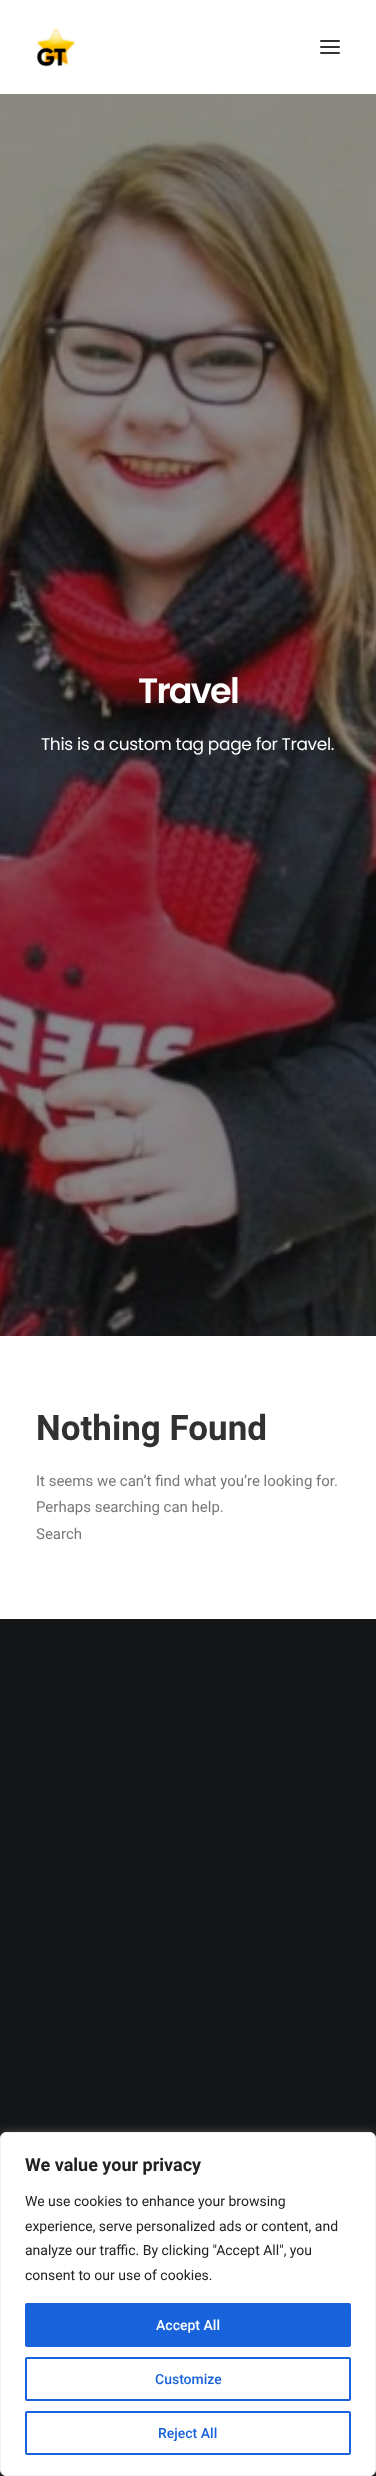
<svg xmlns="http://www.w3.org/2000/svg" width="376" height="2476">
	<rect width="100%" height="100%" fill="#141618" />
	<rect x="0" y="0" width="376" height="94" fill="#FFFFFF" />
	<image x="36" y="28" width="40" height="39" href="assets/img1.png" />
	<rect x="320" y="46" width="20" height="2" rx="1" fill="#303133" />
	<rect x="320" y="40" width="20" height="2" rx="1" fill="#303133" />
	<rect x="320" y="52" width="20" height="2" rx="1" fill="#303133" />
	<image x="0" y="94" width="376" height="1242" href="assets/img2.png" />
	<text x="138" y="703" font-family="Poppins" font-size="35" font-weight="600" letter-spacing="-1.75" fill="#FFFFFF">Travel</text>
	<text x="41" y="750" font-family="Poppins" font-size="17" letter-spacing="-0.35" fill="#FFFFFF">This is a custom tag page for Travel.</text>
	<rect x="0" y="1336" width="376" height="283" fill="#FFFFFF" />
	<text x="36" y="1440" font-family="Roboto" font-size="35" font-weight="700" fill="#303133">Nothing Found</text>
	<g font-family="Roboto" font-size="15" fill="#777777">
		<text x="36" y="1486">It seems we can’t find what you’re looking for.</text>
		<text x="36" y="1512">Perhaps searching can help.</text>
		<text x="36" y="1539">Search</text>
	</g>
	<rect x="0" y="2131" width="376" height="344" rx="6" fill="#ACABAB" fill-opacity="0.3" filter="blur(5px)" />
	<rect x="0.5" y="2132.5" width="375" height="343" rx="5.5" fill="#FFFFFF" stroke="#F4F4F4" />
	<text x="25" y="2171" font-family="Roboto" font-size="18" font-weight="700" fill="#212121">We value your privacy</text>
	<g font-family="Roboto" font-size="14" fill="#212121">
		<text x="25" y="2206">We use cookies to enhance your browsing</text>
		<text x="25" y="2231">experience, serve personalized ads or content, and</text>
		<text x="25" y="2255">analyze our traffic. By clicking "Accept All", you</text>
		<text x="25" y="2280">consent to our use of cookies.</text>
	</g>
	<rect x="26" y="2304" width="324" height="42" rx="1" fill="#1863DC" stroke="#1863DC" stroke-width="2" />
	<text x="156" y="2330" font-family="Roboto" font-size="14" font-weight="500" fill="#FFFFFF">Accept All</text>
	<rect x="26" y="2358" width="324" height="42" rx="1" fill="none" stroke="#1863DC" stroke-width="2" />
	<text x="155" y="2384" font-family="Roboto" font-size="14" font-weight="500" fill="#1863DC">Customize</text>
	<rect x="26" y="2412" width="324" height="42" rx="1" fill="none" stroke="#1863DC" stroke-width="2" />
	<text x="158" y="2438" font-family="Roboto" font-size="14" font-weight="500" fill="#1863DC">Reject All</text>
</svg>
